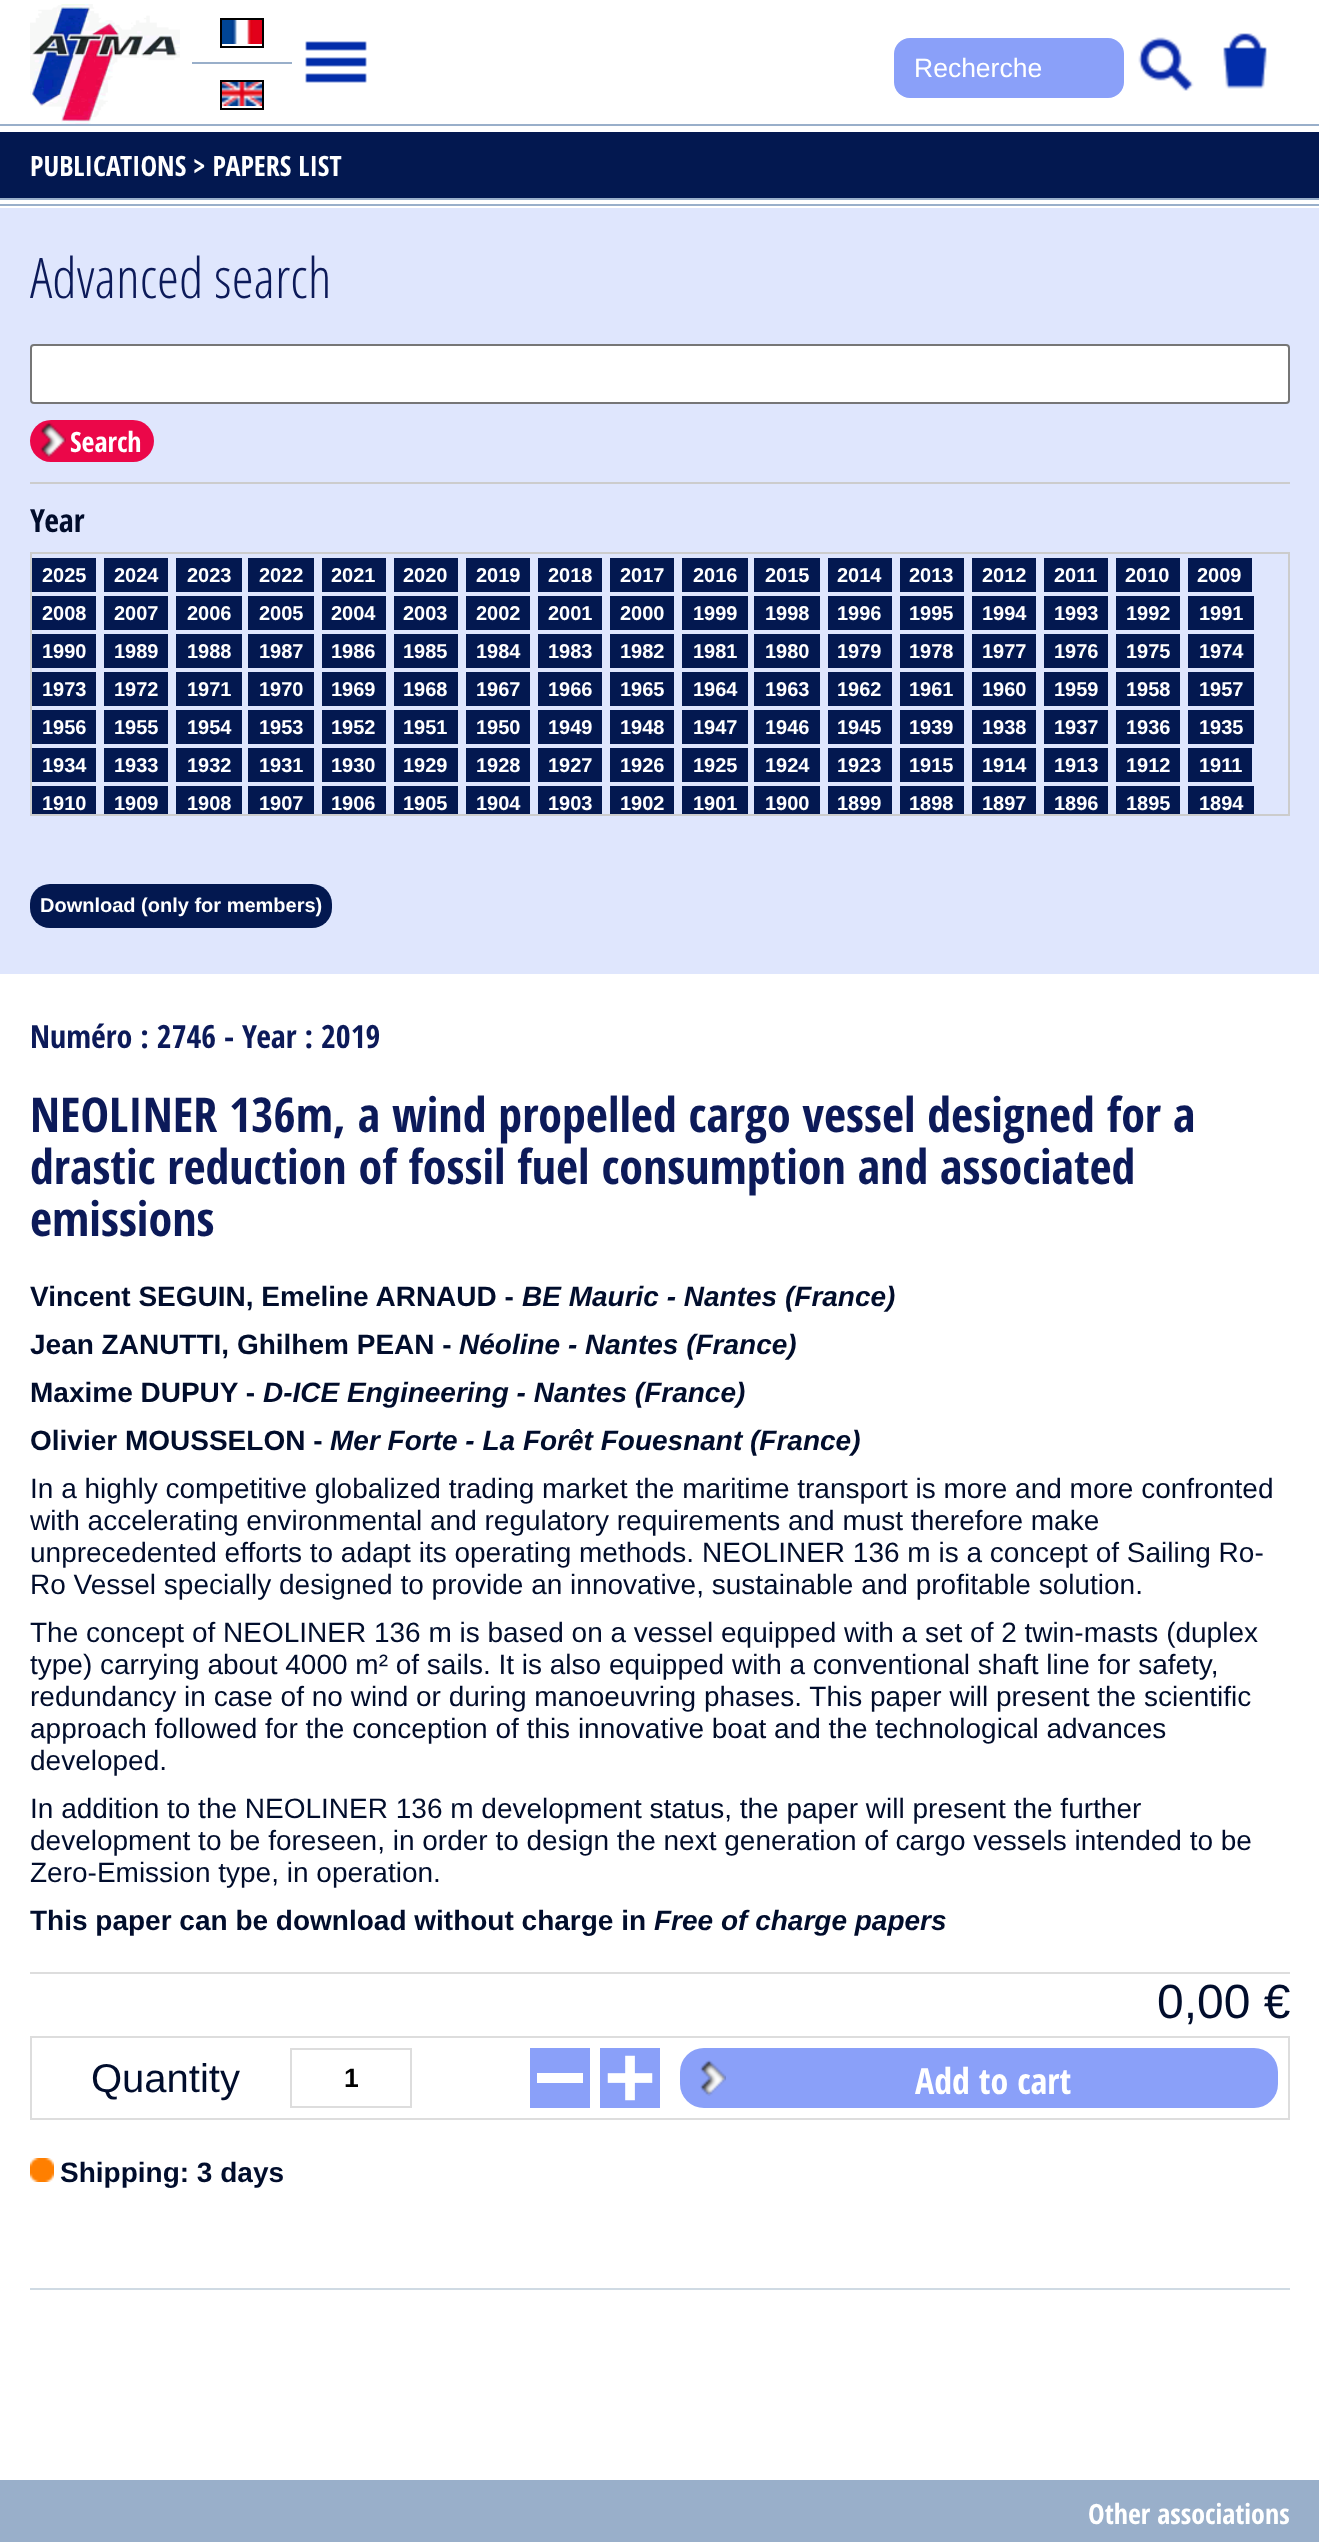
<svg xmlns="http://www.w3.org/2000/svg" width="1319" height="2542">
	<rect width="100%" height="100%" fill="#FFFFFF" />
	<image x="30" y="4" width="150" height="120" href="assets/img1.png" />
	<image x="222" y="20" width="40" height="24" href="assets/img2.png" />
	<rect x="192" y="62" width="100" height="2" fill="#99AFCA" />
	<rect x="221" y="19" width="42" height="28" fill="none" stroke="#000000" stroke-width="2" />
	<image x="222" y="82" width="40" height="24" href="assets/img3.png" />
	<rect x="221" y="81" width="42" height="28" fill="none" stroke="#000000" stroke-width="2" />
	<image x="305" y="41" width="62" height="42" href="assets/img4.png" />
	<rect x="894" y="38" width="230" height="60" rx="16" fill="#8AA0F9" />
	<text x="914" y="77" font-family="Liberation Sans" font-size="26.5" fill="#FFFFFF">Recherche</text>
	<image x="1138" y="37" width="56" height="54" href="assets/img5.png" />
	<image x="1223" y="33" width="44" height="56" href="assets/img6.png" />
	<rect x="0" y="132" width="1319" height="66" fill="#031850" />
	<rect x="0" y="124" width="1319" height="2" fill="#99AFCA" />
	<text x="30" y="176" font-family="Open Sans Condensed" font-size="28" font-weight="700" fill="#FFFFFF">PUBLICATIONS &gt; PAPERS LIST</text>
	<rect x="0" y="204" width="1319" height="2" fill="#99AFCA" />
	<rect x="0" y="198" width="1319" height="2" fill="#99AFCA" />
	<rect x="0" y="208" width="1319" height="766" fill="#DFE6FD" />
	<text x="30" y="298" font-family="Open Sans Condensed" font-size="56" font-weight="300" fill="#0C1A59">Advanced search</text>
	<rect x="31" y="345" width="1258" height="58" rx="3" fill="#FFFFFF" stroke="#767676" stroke-width="2" />
	<rect x="30" y="420" width="124" height="42" rx="21" fill="#EB0749" />
	<image x="40" y="422" width="26" height="36" href="assets/img7.png" />
	<text x="70" y="452" font-family="Open Sans Condensed" font-size="28" font-weight="700" fill="#FFFFFF">Search</text>
	<rect x="30" y="482" width="1260" height="2" fill="#CCCCCC" />
	<text x="30" y="532" font-family="Open Sans Condensed" font-size="32" font-weight="700" fill="#010D2C">Year</text>
	<rect x="31" y="553" width="1258" height="262" fill="none" stroke="#CCCCCC" stroke-width="2" />
	<rect x="32" y="558" width="64" height="34" fill="#031850" />
	<text x="42" y="582" font-family="Liberation Sans" font-size="20" font-weight="700" fill="#FFFFFF">2025</text>
	<rect x="104" y="558" width="64" height="34" fill="#031850" />
	<text x="114" y="582" font-family="Liberation Sans" font-size="20" font-weight="700" fill="#FFFFFF">2024</text>
	<rect x="176" y="558" width="66" height="34" fill="#031850" />
	<text x="187" y="582" font-family="Liberation Sans" font-size="20" font-weight="700" fill="#FFFFFF">2023</text>
	<rect x="248" y="558" width="66" height="34" fill="#031850" />
	<text x="259" y="582" font-family="Liberation Sans" font-size="20" font-weight="700" fill="#FFFFFF">2022</text>
	<rect x="322" y="558" width="64" height="34" fill="#031850" />
	<text x="331" y="582" font-family="Liberation Sans" font-size="20" font-weight="700" fill="#FFFFFF">2021</text>
	<rect x="394" y="558" width="64" height="34" fill="#031850" />
	<text x="403" y="582" font-family="Liberation Sans" font-size="20" font-weight="700" fill="#FFFFFF">2020</text>
	<rect x="466" y="558" width="64" height="34" fill="#031850" />
	<text x="476" y="582" font-family="Liberation Sans" font-size="20" font-weight="700" fill="#FFFFFF">2019</text>
	<rect x="538" y="558" width="64" height="34" fill="#031850" />
	<text x="548" y="582" font-family="Liberation Sans" font-size="20" font-weight="700" fill="#FFFFFF">2018</text>
	<rect x="610" y="558" width="64" height="34" fill="#031850" />
	<text x="620" y="582" font-family="Liberation Sans" font-size="20" font-weight="700" fill="#FFFFFF">2017</text>
	<rect x="682" y="558" width="66" height="34" fill="#031850" />
	<text x="693" y="582" font-family="Liberation Sans" font-size="20" font-weight="700" fill="#FFFFFF">2016</text>
	<rect x="754" y="558" width="66" height="34" fill="#031850" />
	<text x="765" y="582" font-family="Liberation Sans" font-size="20" font-weight="700" fill="#FFFFFF">2015</text>
	<rect x="828" y="558" width="64" height="34" fill="#031850" />
	<text x="837" y="582" font-family="Liberation Sans" font-size="20" font-weight="700" fill="#FFFFFF">2014</text>
	<rect x="900" y="558" width="64" height="34" fill="#031850" />
	<text x="909" y="582" font-family="Liberation Sans" font-size="20" font-weight="700" fill="#FFFFFF">2013</text>
	<rect x="972" y="558" width="64" height="34" fill="#031850" />
	<text x="982" y="582" font-family="Liberation Sans" font-size="20" font-weight="700" fill="#FFFFFF">2012</text>
	<rect x="1044" y="558" width="64" height="34" fill="#031850" />
	<text x="1054" y="582" font-family="Liberation Sans" font-size="20" font-weight="700" fill="#FFFFFF">2011</text>
	<rect x="1116" y="558" width="64" height="34" fill="#031850" />
	<text x="1125" y="582" font-family="Liberation Sans" font-size="20" font-weight="700" fill="#FFFFFF">2010</text>
	<rect x="1188" y="558" width="64" height="34" fill="#031850" />
	<text x="1197" y="582" font-family="Liberation Sans" font-size="20" font-weight="700" fill="#FFFFFF">2009</text>
	<rect x="32" y="596" width="64" height="34" fill="#031850" />
	<text x="42" y="620" font-family="Liberation Sans" font-size="20" font-weight="700" fill="#FFFFFF">2008</text>
	<rect x="104" y="596" width="64" height="34" fill="#031850" />
	<text x="114" y="620" font-family="Liberation Sans" font-size="20" font-weight="700" fill="#FFFFFF">2007</text>
	<rect x="176" y="596" width="66" height="34" fill="#031850" />
	<text x="187" y="620" font-family="Liberation Sans" font-size="20" font-weight="700" fill="#FFFFFF">2006</text>
	<rect x="248" y="596" width="66" height="34" fill="#031850" />
	<text x="259" y="620" font-family="Liberation Sans" font-size="20" font-weight="700" fill="#FFFFFF">2005</text>
	<rect x="322" y="596" width="64" height="34" fill="#031850" />
	<text x="331" y="620" font-family="Liberation Sans" font-size="20" font-weight="700" fill="#FFFFFF">2004</text>
	<rect x="394" y="596" width="64" height="34" fill="#031850" />
	<text x="403" y="620" font-family="Liberation Sans" font-size="20" font-weight="700" fill="#FFFFFF">2003</text>
	<rect x="466" y="596" width="64" height="34" fill="#031850" />
	<text x="476" y="620" font-family="Liberation Sans" font-size="20" font-weight="700" fill="#FFFFFF">2002</text>
	<rect x="538" y="596" width="64" height="34" fill="#031850" />
	<text x="548" y="620" font-family="Liberation Sans" font-size="20" font-weight="700" fill="#FFFFFF">2001</text>
	<rect x="610" y="596" width="64" height="34" fill="#031850" />
	<text x="620" y="620" font-family="Liberation Sans" font-size="20" font-weight="700" fill="#FFFFFF">2000</text>
	<rect x="682" y="596" width="66" height="34" fill="#031850" />
	<text x="693" y="620" font-family="Liberation Sans" font-size="20" font-weight="700" fill="#FFFFFF">1999</text>
	<rect x="754" y="596" width="66" height="34" fill="#031850" />
	<text x="765" y="620" font-family="Liberation Sans" font-size="20" font-weight="700" fill="#FFFFFF">1998</text>
	<rect x="828" y="596" width="64" height="34" fill="#031850" />
	<text x="837" y="620" font-family="Liberation Sans" font-size="20" font-weight="700" fill="#FFFFFF">1996</text>
	<rect x="900" y="596" width="64" height="34" fill="#031850" />
	<text x="909" y="620" font-family="Liberation Sans" font-size="20" font-weight="700" fill="#FFFFFF">1995</text>
	<rect x="972" y="596" width="64" height="34" fill="#031850" />
	<text x="982" y="620" font-family="Liberation Sans" font-size="20" font-weight="700" fill="#FFFFFF">1994</text>
	<rect x="1044" y="596" width="64" height="34" fill="#031850" />
	<text x="1054" y="620" font-family="Liberation Sans" font-size="20" font-weight="700" fill="#FFFFFF">1993</text>
	<rect x="1116" y="596" width="64" height="34" fill="#031850" />
	<text x="1126" y="620" font-family="Liberation Sans" font-size="20" font-weight="700" fill="#FFFFFF">1992</text>
	<rect x="1188" y="596" width="66" height="34" fill="#031850" />
	<text x="1199" y="620" font-family="Liberation Sans" font-size="20" font-weight="700" fill="#FFFFFF">1991</text>
	<rect x="32" y="634" width="64" height="34" fill="#031850" />
	<text x="42" y="658" font-family="Liberation Sans" font-size="20" font-weight="700" fill="#FFFFFF">1990</text>
	<rect x="104" y="634" width="64" height="34" fill="#031850" />
	<text x="114" y="658" font-family="Liberation Sans" font-size="20" font-weight="700" fill="#FFFFFF">1989</text>
	<rect x="176" y="634" width="66" height="34" fill="#031850" />
	<text x="187" y="658" font-family="Liberation Sans" font-size="20" font-weight="700" fill="#FFFFFF">1988</text>
	<rect x="248" y="634" width="66" height="34" fill="#031850" />
	<text x="259" y="658" font-family="Liberation Sans" font-size="20" font-weight="700" fill="#FFFFFF">1987</text>
	<rect x="322" y="634" width="64" height="34" fill="#031850" />
	<text x="331" y="658" font-family="Liberation Sans" font-size="20" font-weight="700" fill="#FFFFFF">1986</text>
	<rect x="394" y="634" width="64" height="34" fill="#031850" />
	<text x="403" y="658" font-family="Liberation Sans" font-size="20" font-weight="700" fill="#FFFFFF">1985</text>
	<rect x="466" y="634" width="64" height="34" fill="#031850" />
	<text x="476" y="658" font-family="Liberation Sans" font-size="20" font-weight="700" fill="#FFFFFF">1984</text>
	<rect x="538" y="634" width="64" height="34" fill="#031850" />
	<text x="548" y="658" font-family="Liberation Sans" font-size="20" font-weight="700" fill="#FFFFFF">1983</text>
	<rect x="610" y="634" width="64" height="34" fill="#031850" />
	<text x="620" y="658" font-family="Liberation Sans" font-size="20" font-weight="700" fill="#FFFFFF">1982</text>
	<rect x="682" y="634" width="66" height="34" fill="#031850" />
	<text x="693" y="658" font-family="Liberation Sans" font-size="20" font-weight="700" fill="#FFFFFF">1981</text>
	<rect x="754" y="634" width="66" height="34" fill="#031850" />
	<text x="765" y="658" font-family="Liberation Sans" font-size="20" font-weight="700" fill="#FFFFFF">1980</text>
	<rect x="828" y="634" width="64" height="34" fill="#031850" />
	<text x="837" y="658" font-family="Liberation Sans" font-size="20" font-weight="700" fill="#FFFFFF">1979</text>
	<rect x="900" y="634" width="64" height="34" fill="#031850" />
	<text x="909" y="658" font-family="Liberation Sans" font-size="20" font-weight="700" fill="#FFFFFF">1978</text>
	<rect x="972" y="634" width="64" height="34" fill="#031850" />
	<text x="982" y="658" font-family="Liberation Sans" font-size="20" font-weight="700" fill="#FFFFFF">1977</text>
	<rect x="1044" y="634" width="64" height="34" fill="#031850" />
	<text x="1054" y="658" font-family="Liberation Sans" font-size="20" font-weight="700" fill="#FFFFFF">1976</text>
	<rect x="1116" y="634" width="64" height="34" fill="#031850" />
	<text x="1126" y="658" font-family="Liberation Sans" font-size="20" font-weight="700" fill="#FFFFFF">1975</text>
	<rect x="1188" y="634" width="66" height="34" fill="#031850" />
	<text x="1199" y="658" font-family="Liberation Sans" font-size="20" font-weight="700" fill="#FFFFFF">1974</text>
	<rect x="32" y="672" width="64" height="34" fill="#031850" />
	<text x="42" y="696" font-family="Liberation Sans" font-size="20" font-weight="700" fill="#FFFFFF">1973</text>
	<rect x="104" y="672" width="64" height="34" fill="#031850" />
	<text x="114" y="696" font-family="Liberation Sans" font-size="20" font-weight="700" fill="#FFFFFF">1972</text>
	<rect x="176" y="672" width="66" height="34" fill="#031850" />
	<text x="187" y="696" font-family="Liberation Sans" font-size="20" font-weight="700" fill="#FFFFFF">1971</text>
	<rect x="248" y="672" width="66" height="34" fill="#031850" />
	<text x="259" y="696" font-family="Liberation Sans" font-size="20" font-weight="700" fill="#FFFFFF">1970</text>
	<rect x="322" y="672" width="64" height="34" fill="#031850" />
	<text x="331" y="696" font-family="Liberation Sans" font-size="20" font-weight="700" fill="#FFFFFF">1969</text>
	<rect x="394" y="672" width="64" height="34" fill="#031850" />
	<text x="403" y="696" font-family="Liberation Sans" font-size="20" font-weight="700" fill="#FFFFFF">1968</text>
	<rect x="466" y="672" width="64" height="34" fill="#031850" />
	<text x="476" y="696" font-family="Liberation Sans" font-size="20" font-weight="700" fill="#FFFFFF">1967</text>
	<rect x="538" y="672" width="64" height="34" fill="#031850" />
	<text x="548" y="696" font-family="Liberation Sans" font-size="20" font-weight="700" fill="#FFFFFF">1966</text>
	<rect x="610" y="672" width="64" height="34" fill="#031850" />
	<text x="620" y="696" font-family="Liberation Sans" font-size="20" font-weight="700" fill="#FFFFFF">1965</text>
	<rect x="682" y="672" width="66" height="34" fill="#031850" />
	<text x="693" y="696" font-family="Liberation Sans" font-size="20" font-weight="700" fill="#FFFFFF">1964</text>
	<rect x="754" y="672" width="66" height="34" fill="#031850" />
	<text x="765" y="696" font-family="Liberation Sans" font-size="20" font-weight="700" fill="#FFFFFF">1963</text>
	<rect x="828" y="672" width="64" height="34" fill="#031850" />
	<text x="837" y="696" font-family="Liberation Sans" font-size="20" font-weight="700" fill="#FFFFFF">1962</text>
	<rect x="900" y="672" width="64" height="34" fill="#031850" />
	<text x="909" y="696" font-family="Liberation Sans" font-size="20" font-weight="700" fill="#FFFFFF">1961</text>
	<rect x="972" y="672" width="64" height="34" fill="#031850" />
	<text x="982" y="696" font-family="Liberation Sans" font-size="20" font-weight="700" fill="#FFFFFF">1960</text>
	<rect x="1044" y="672" width="64" height="34" fill="#031850" />
	<text x="1054" y="696" font-family="Liberation Sans" font-size="20" font-weight="700" fill="#FFFFFF">1959</text>
	<rect x="1116" y="672" width="64" height="34" fill="#031850" />
	<text x="1126" y="696" font-family="Liberation Sans" font-size="20" font-weight="700" fill="#FFFFFF">1958</text>
	<rect x="1188" y="672" width="66" height="34" fill="#031850" />
	<text x="1199" y="696" font-family="Liberation Sans" font-size="20" font-weight="700" fill="#FFFFFF">1957</text>
	<rect x="32" y="710" width="64" height="34" fill="#031850" />
	<text x="42" y="734" font-family="Liberation Sans" font-size="20" font-weight="700" fill="#FFFFFF">1956</text>
	<rect x="104" y="710" width="64" height="34" fill="#031850" />
	<text x="114" y="734" font-family="Liberation Sans" font-size="20" font-weight="700" fill="#FFFFFF">1955</text>
	<rect x="176" y="710" width="66" height="34" fill="#031850" />
	<text x="187" y="734" font-family="Liberation Sans" font-size="20" font-weight="700" fill="#FFFFFF">1954</text>
	<rect x="248" y="710" width="66" height="34" fill="#031850" />
	<text x="259" y="734" font-family="Liberation Sans" font-size="20" font-weight="700" fill="#FFFFFF">1953</text>
	<rect x="322" y="710" width="64" height="34" fill="#031850" />
	<text x="331" y="734" font-family="Liberation Sans" font-size="20" font-weight="700" fill="#FFFFFF">1952</text>
	<rect x="394" y="710" width="64" height="34" fill="#031850" />
	<text x="403" y="734" font-family="Liberation Sans" font-size="20" font-weight="700" fill="#FFFFFF">1951</text>
	<rect x="466" y="710" width="64" height="34" fill="#031850" />
	<text x="476" y="734" font-family="Liberation Sans" font-size="20" font-weight="700" fill="#FFFFFF">1950</text>
	<rect x="538" y="710" width="64" height="34" fill="#031850" />
	<text x="548" y="734" font-family="Liberation Sans" font-size="20" font-weight="700" fill="#FFFFFF">1949</text>
	<rect x="610" y="710" width="64" height="34" fill="#031850" />
	<text x="620" y="734" font-family="Liberation Sans" font-size="20" font-weight="700" fill="#FFFFFF">1948</text>
	<rect x="682" y="710" width="66" height="34" fill="#031850" />
	<text x="693" y="734" font-family="Liberation Sans" font-size="20" font-weight="700" fill="#FFFFFF">1947</text>
	<rect x="754" y="710" width="66" height="34" fill="#031850" />
	<text x="765" y="734" font-family="Liberation Sans" font-size="20" font-weight="700" fill="#FFFFFF">1946</text>
	<rect x="828" y="710" width="64" height="34" fill="#031850" />
	<text x="837" y="734" font-family="Liberation Sans" font-size="20" font-weight="700" fill="#FFFFFF">1945</text>
	<rect x="900" y="710" width="64" height="34" fill="#031850" />
	<text x="909" y="734" font-family="Liberation Sans" font-size="20" font-weight="700" fill="#FFFFFF">1939</text>
	<rect x="972" y="710" width="64" height="34" fill="#031850" />
	<text x="982" y="734" font-family="Liberation Sans" font-size="20" font-weight="700" fill="#FFFFFF">1938</text>
	<rect x="1044" y="710" width="64" height="34" fill="#031850" />
	<text x="1054" y="734" font-family="Liberation Sans" font-size="20" font-weight="700" fill="#FFFFFF">1937</text>
	<rect x="1116" y="710" width="64" height="34" fill="#031850" />
	<text x="1126" y="734" font-family="Liberation Sans" font-size="20" font-weight="700" fill="#FFFFFF">1936</text>
	<rect x="1188" y="710" width="66" height="34" fill="#031850" />
	<text x="1199" y="734" font-family="Liberation Sans" font-size="20" font-weight="700" fill="#FFFFFF">1935</text>
	<rect x="32" y="748" width="64" height="34" fill="#031850" />
	<text x="42" y="772" font-family="Liberation Sans" font-size="20" font-weight="700" fill="#FFFFFF">1934</text>
	<rect x="104" y="748" width="64" height="34" fill="#031850" />
	<text x="114" y="772" font-family="Liberation Sans" font-size="20" font-weight="700" fill="#FFFFFF">1933</text>
	<rect x="176" y="748" width="66" height="34" fill="#031850" />
	<text x="187" y="772" font-family="Liberation Sans" font-size="20" font-weight="700" fill="#FFFFFF">1932</text>
	<rect x="248" y="748" width="66" height="34" fill="#031850" />
	<text x="259" y="772" font-family="Liberation Sans" font-size="20" font-weight="700" fill="#FFFFFF">1931</text>
	<rect x="322" y="748" width="64" height="34" fill="#031850" />
	<text x="331" y="772" font-family="Liberation Sans" font-size="20" font-weight="700" fill="#FFFFFF">1930</text>
	<rect x="394" y="748" width="64" height="34" fill="#031850" />
	<text x="403" y="772" font-family="Liberation Sans" font-size="20" font-weight="700" fill="#FFFFFF">1929</text>
	<rect x="466" y="748" width="64" height="34" fill="#031850" />
	<text x="476" y="772" font-family="Liberation Sans" font-size="20" font-weight="700" fill="#FFFFFF">1928</text>
	<rect x="538" y="748" width="64" height="34" fill="#031850" />
	<text x="548" y="772" font-family="Liberation Sans" font-size="20" font-weight="700" fill="#FFFFFF">1927</text>
	<rect x="610" y="748" width="64" height="34" fill="#031850" />
	<text x="620" y="772" font-family="Liberation Sans" font-size="20" font-weight="700" fill="#FFFFFF">1926</text>
	<rect x="682" y="748" width="66" height="34" fill="#031850" />
	<text x="693" y="772" font-family="Liberation Sans" font-size="20" font-weight="700" fill="#FFFFFF">1925</text>
	<rect x="754" y="748" width="66" height="34" fill="#031850" />
	<text x="765" y="772" font-family="Liberation Sans" font-size="20" font-weight="700" fill="#FFFFFF">1924</text>
	<rect x="828" y="748" width="64" height="34" fill="#031850" />
	<text x="837" y="772" font-family="Liberation Sans" font-size="20" font-weight="700" fill="#FFFFFF">1923</text>
	<rect x="900" y="748" width="64" height="34" fill="#031850" />
	<text x="909" y="772" font-family="Liberation Sans" font-size="20" font-weight="700" fill="#FFFFFF">1915</text>
	<rect x="972" y="748" width="64" height="34" fill="#031850" />
	<text x="982" y="772" font-family="Liberation Sans" font-size="20" font-weight="700" fill="#FFFFFF">1914</text>
	<rect x="1044" y="748" width="64" height="34" fill="#031850" />
	<text x="1054" y="772" font-family="Liberation Sans" font-size="20" font-weight="700" fill="#FFFFFF">1913</text>
	<rect x="1116" y="748" width="64" height="34" fill="#031850" />
	<text x="1126" y="772" font-family="Liberation Sans" font-size="20" font-weight="700" fill="#FFFFFF">1912</text>
	<rect x="1188" y="748" width="64" height="34" fill="#031850" />
	<text x="1199" y="772" font-family="Liberation Sans" font-size="20" font-weight="700" fill="#FFFFFF">1911</text>
	<rect x="32" y="786" width="64" height="28" fill="#031850" />
	<text x="42" y="810" font-family="Liberation Sans" font-size="20" font-weight="700" fill="#FFFFFF">1910</text>
	<rect x="104" y="786" width="64" height="28" fill="#031850" />
	<text x="114" y="810" font-family="Liberation Sans" font-size="20" font-weight="700" fill="#FFFFFF">1909</text>
	<rect x="176" y="786" width="66" height="28" fill="#031850" />
	<text x="187" y="810" font-family="Liberation Sans" font-size="20" font-weight="700" fill="#FFFFFF">1908</text>
	<rect x="248" y="786" width="66" height="28" fill="#031850" />
	<text x="259" y="810" font-family="Liberation Sans" font-size="20" font-weight="700" fill="#FFFFFF">1907</text>
	<rect x="322" y="786" width="64" height="28" fill="#031850" />
	<text x="331" y="810" font-family="Liberation Sans" font-size="20" font-weight="700" fill="#FFFFFF">1906</text>
	<rect x="394" y="786" width="64" height="28" fill="#031850" />
	<text x="403" y="810" font-family="Liberation Sans" font-size="20" font-weight="700" fill="#FFFFFF">1905</text>
	<rect x="466" y="786" width="64" height="28" fill="#031850" />
	<text x="476" y="810" font-family="Liberation Sans" font-size="20" font-weight="700" fill="#FFFFFF">1904</text>
	<rect x="538" y="786" width="64" height="28" fill="#031850" />
	<text x="548" y="810" font-family="Liberation Sans" font-size="20" font-weight="700" fill="#FFFFFF">1903</text>
	<rect x="610" y="786" width="64" height="28" fill="#031850" />
	<text x="620" y="810" font-family="Liberation Sans" font-size="20" font-weight="700" fill="#FFFFFF">1902</text>
	<rect x="682" y="786" width="66" height="28" fill="#031850" />
	<text x="693" y="810" font-family="Liberation Sans" font-size="20" font-weight="700" fill="#FFFFFF">1901</text>
	<rect x="754" y="786" width="66" height="28" fill="#031850" />
	<text x="765" y="810" font-family="Liberation Sans" font-size="20" font-weight="700" fill="#FFFFFF">1900</text>
	<rect x="828" y="786" width="64" height="28" fill="#031850" />
	<text x="837" y="810" font-family="Liberation Sans" font-size="20" font-weight="700" fill="#FFFFFF">1899</text>
	<rect x="900" y="786" width="64" height="28" fill="#031850" />
	<text x="909" y="810" font-family="Liberation Sans" font-size="20" font-weight="700" fill="#FFFFFF">1898</text>
	<rect x="972" y="786" width="64" height="28" fill="#031850" />
	<text x="982" y="810" font-family="Liberation Sans" font-size="20" font-weight="700" fill="#FFFFFF">1897</text>
	<rect x="1044" y="786" width="64" height="28" fill="#031850" />
	<text x="1054" y="810" font-family="Liberation Sans" font-size="20" font-weight="700" fill="#FFFFFF">1896</text>
	<rect x="1116" y="786" width="64" height="28" fill="#031850" />
	<text x="1126" y="810" font-family="Liberation Sans" font-size="20" font-weight="700" fill="#FFFFFF">1895</text>
	<rect x="1188" y="786" width="66" height="28" fill="#031850" />
	<text x="1199" y="810" font-family="Liberation Sans" font-size="20" font-weight="700" fill="#FFFFFF">1894</text>
	<rect x="30" y="884" width="302" height="44" rx="20" fill="#031850" />
	<text x="40" y="912" font-family="Liberation Sans" font-size="20" font-weight="700" fill="#FFFFFF">Download (only for members)</text>
	<text x="30" y="1048" font-family="Open Sans Condensed" font-size="32" font-weight="700" fill="#0C1A59">Numéro : 2746 - Year : 2019</text>
	<g font-family="Open Sans Condensed" font-size="48" font-weight="700" fill="#0C1A59">
		<text x="30" y="1132">NEOLINER 136m, a wind propelled cargo vessel designed for a</text>
		<text x="30" y="1184">drastic reduction of fossil fuel consumption and associated</text>
		<text x="30" y="1236">emissions</text>
	</g>
	<text x="30" y="1306" font-family="Liberation Sans" font-size="28" font-weight="700" fill="#010D2C">Vincent SEGUIN, Emeline ARNAUD -</text>
	<text x="522" y="1306" font-family="Liberation Sans" font-size="28" font-weight="700" font-style="italic" fill="#010D2C">BE Mauric - Nantes (France)</text>
	<text x="30" y="1354" font-family="Liberation Sans" font-size="28" font-weight="700" fill="#010D2C">Jean ZANUTTI, Ghilhem PEAN -</text>
	<text x="459" y="1354" font-family="Liberation Sans" font-size="28" font-weight="700" font-style="italic" fill="#010D2C">Néoline - Nantes (France)</text>
	<text x="30" y="1402" font-family="Liberation Sans" font-size="28" font-weight="700" fill="#010D2C">Maxime DUPUY -</text>
	<text x="263" y="1402" font-family="Liberation Sans" font-size="28" font-weight="700" font-style="italic" fill="#010D2C">D-ICE Engineering - Nantes (France)</text>
	<text x="30" y="1450" font-family="Liberation Sans" font-size="28" font-weight="700" fill="#010D2C">Olivier MOUSSELON -</text>
	<text x="330" y="1450" font-family="Liberation Sans" font-size="28" font-weight="700" font-style="italic" fill="#010D2C">Mer Forte - La Forêt Fouesnant (France)</text>
	<g font-family="Liberation Sans" font-size="28" fill="#010D2C">
		<text x="30" y="1498">In a highly competitive globalized trading market the maritime transport is more and more confronted</text>
		<text x="30" y="1530">with accelerating environmental and regulatory requirements and must therefore make</text>
		<text x="30" y="1562">unprecedented efforts to adapt its operating methods. NEOLINER 136 m is a concept of Sailing Ro-</text>
		<text x="30" y="1594">Ro Vessel specially designed to provide an innovative, sustainable and profitable solution.</text>
		<text x="30" y="1642">The concept of NEOLINER 136 m is based on a vessel equipped with a set of 2 twin-masts (duplex</text>
		<text x="30" y="1674">type) carrying about 4000 m² of sails. It is also equipped with a conventional shaft line for safety,</text>
		<text x="30" y="1706">redundancy in case of no wind or during manoeuvring phases. This paper will present the scientific</text>
		<text x="30" y="1738">approach followed for the conception of this innovative boat and the technological advances</text>
		<text x="30" y="1770">developed.</text>
		<text x="30" y="1818">In addition to the NEOLINER 136 m development status, the paper will present the further</text>
		<text x="30" y="1850">development to be foreseen, in order to design the next generation of cargo vessels intended to be</text>
		<text x="30" y="1882">Zero-Emission type, in operation.</text>
	</g>
	<text x="30" y="1930" font-family="Liberation Sans" font-size="28" font-weight="700" fill="#010D2C">This paper can be download without charge in</text>
	<text x="654" y="1930" font-family="Liberation Sans" font-size="28" font-weight="700" font-style="italic" fill="#010D2C">Free of charge papers</text>
	<rect x="30" y="1972" width="1260" height="2" fill="#DDDDDD" />
	<text x="1157" y="2018" font-family="Liberation Sans" font-size="48" fill="#010D2C">0,00 €</text>
	<rect x="31" y="2037" width="1258" height="82" fill="none" stroke="#DDDDDD" stroke-width="2" />
	<text x="91" y="2092" font-family="Liberation Sans" font-size="40" fill="#010D2C">Quantity</text>
	<rect x="291" y="2049" width="120" height="58" fill="none" stroke="#DDDDDD" stroke-width="2" />
	<text x="344" y="2087" font-family="Liberation Sans" font-size="26.5" font-weight="700" fill="#000000">1</text>
	<rect x="530" y="2048" width="60" height="60" fill="#8AA0F9" />
	<rect x="537" y="2073" width="46" height="10" fill="#FFFFFF" />
	<rect x="600" y="2048" width="60" height="60" fill="#8AA0F9" />
	<image x="607" y="2055" width="46" height="46" href="assets/img8.png" />
	<rect x="680" y="2048" width="598" height="60" rx="24" fill="#8AA0F9" />
	<image x="700" y="2060" width="26" height="36" href="assets/img9.png" />
	<text x="915" y="2094" font-family="Open Sans Condensed" font-size="36" font-weight="700" fill="#FFFFFF">Add to cart</text>
	<image x="30" y="2158" width="24" height="24" href="assets/img10.png" />
	<text x="60" y="2182" font-family="Liberation Sans" font-size="28" font-weight="700" fill="#010D2C">Shipping: 3 days</text>
	<rect x="30" y="2288" width="1260" height="2" fill="#CFDAE3" />
	<rect x="0" y="2480" width="1319" height="62" fill="#99AFCA" />
	<text x="1088" y="2524" font-family="Open Sans Condensed" font-size="28" font-weight="700" fill="#FFFFFF">Other associations</text>
</svg>
